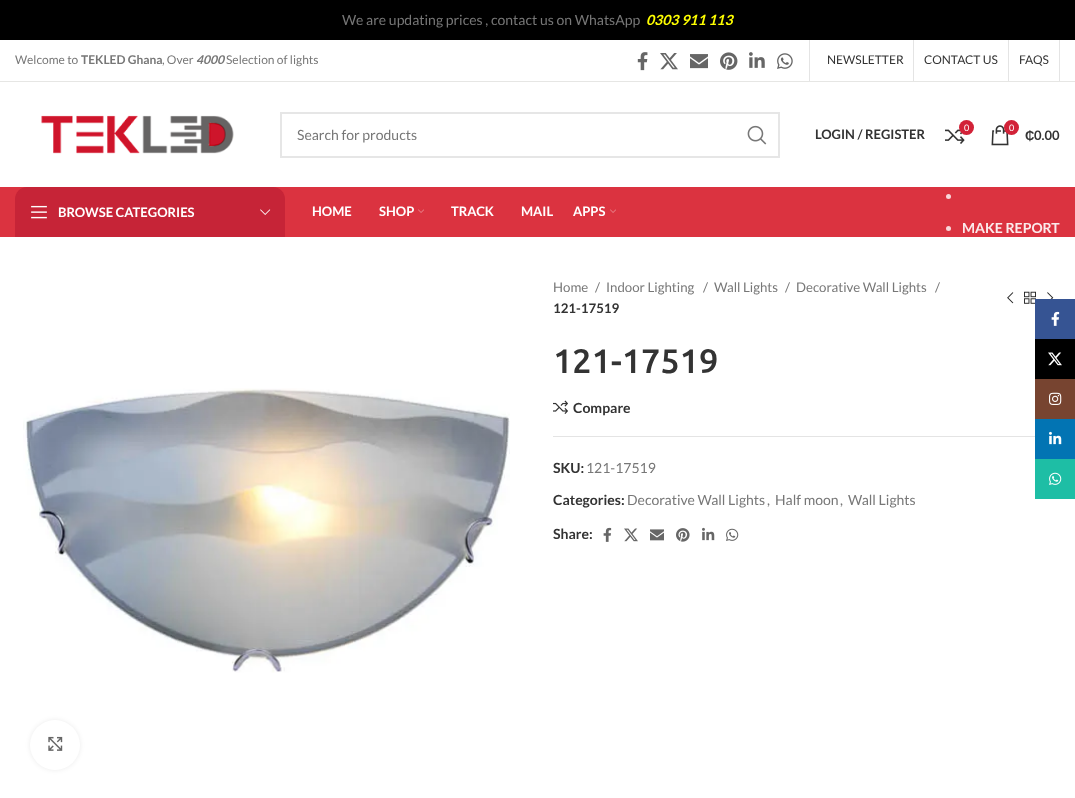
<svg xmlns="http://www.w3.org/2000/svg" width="1075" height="798">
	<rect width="100%" height="100%" fill="#FFFFFF" />
	<rect x="0" y="0" width="1075" height="40" fill="#000000" />
	<text x="342" y="25" font-family="Lato" font-size="14" fill="#777777">We are updating prices , contact us on WhatsApp</text>
	<text x="646" y="25" font-family="Lato" font-size="14" font-weight="700" font-style="italic" fill="#FFFF00">0303 911 113</text>
	<rect x="0" y="81" width="1075" height="1" fill="#E6E6E4" />
	<text x="15" y="64" font-family="Lato" font-size="12" fill="#777777">Welcome to</text>
	<text x="81" y="64" font-family="Lato" font-size="12" font-weight="700" fill="#777777">TEKLED Ghana</text>
	<text x="162" y="64" font-family="Lato" font-size="12" fill="#777777">, Over</text>
	<text x="196" y="64" font-family="Lato" font-size="12" font-weight="700" font-style="italic" fill="#777777">4000</text>
	<text x="226" y="64" font-family="Lato" font-size="12" fill="#777777">Selection of lights</text>
	<image x="637" y="52" width="11" height="19" href="assets/img1.png" />
	<image x="660" y="53" width="18" height="17" href="assets/img2.png" />
	<image x="690" y="54" width="18" height="15" href="assets/img3.png" />
	<image x="720" y="52" width="18" height="18" href="assets/img4.png" />
	<image x="749" y="52" width="16" height="16" href="assets/img5.png" />
	<image x="777" y="53" width="16" height="16" href="assets/img6.png" />
	<rect x="809" y="40" width="1" height="41" fill="#E4E4E4" />
	<text x="827" y="64" font-family="Lato" font-size="12" fill="#333333">NEWSLETTER</text>
	<rect x="913" y="40" width="1" height="41" fill="#E4E4E4" />
	<text x="924" y="64" font-family="Lato" font-size="12" fill="#333333">CONTACT US</text>
	<rect x="1008" y="40" width="1" height="41" fill="#E4E4E4" />
	<text x="1019" y="64" font-family="Lato" font-size="12" fill="#333333">FAQS</text>
	<rect x="1059" y="40" width="1" height="41" fill="#E4E4E4" />
	<image x="41" y="115" width="193" height="39" href="assets/img7.png" />
	<rect x="281" y="113" width="498" height="44" fill="none" stroke="#E6E6E6" stroke-width="2" />
	<text x="297" y="140" font-family="Lato" font-size="14" fill="#777777">Search for products</text>
	<image x="747" y="125" width="20" height="20" href="assets/img8.png" />
	<text x="815" y="139" font-family="Lato" font-size="13" font-weight="700" fill="#333333">LOGIN / REGISTER</text>
	<image x="945" y="129" width="20" height="15" href="assets/img9.png" />
	<circle cx="966.5" cy="127.5" r="7.5" fill="#D22238" />
	<text x="964" y="131" font-family="Lato" font-size="9" fill="#FFFFFF">0</text>
	<image x="991" y="125" width="18" height="21" href="assets/img10.png" />
	<circle cx="1011.5" cy="127.5" r="7.5" fill="#D22238" />
	<text x="1009" y="131" font-family="Lato" font-size="9" fill="#FFFFFF">0</text>
	<text x="1025" y="140" font-family="Liberation Sans" font-size="13" font-weight="700" fill="#333333">₵</text>
	<text x="1034" y="140" font-family="Lato" font-size="13" font-weight="700" fill="#333333">0.00</text>
	<rect x="0" y="187" width="1075" height="50" fill="#DB3340" />
	<path d="M27 187H273C279.5 187 285 192.5 285 199V237H15V199C15 192.5 20.5 187 27 187Z" fill="#C62437" />
	<image x="31" y="205" width="16" height="14" href="assets/img11.png" />
	<text x="58" y="217" font-family="Lato" font-size="13" font-weight="700" fill="#FFFFFF">BROWSE CATEGORIES</text>
	<image x="260" y="209" width="11" height="6" href="assets/img12.png" />
	<g font-family="Lato" font-size="13" font-weight="700" fill="#FFFFFF">
		<text x="312" y="216">HOME</text>
		<text x="379" y="216">SHOP</text>
	</g>
	<image x="418" y="209" width="6" height="4" href="assets/img13.png" />
	<g font-family="Lato" font-size="13" font-weight="700" fill="#FFFFFF">
		<text x="451" y="216">TRACK</text>
		<text x="521" y="216">MAIL</text>
		<text x="573" y="216">APPS</text>
	</g>
	<image x="610" y="209" width="6" height="4" href="assets/img13.png" />
	<circle cx="948.5" cy="196.5" r="2.5" fill="#F8D6D9" />
	<circle cx="948.5" cy="228.5" r="2.5" fill="#F8D6D9" />
	<text x="962" y="233" font-family="Lato" font-size="14" font-weight="700" fill="#FBEBEC">MAKE REPORT</text>
	<image x="23" y="388" width="487" height="285" href="assets/img14.png" />
	<rect x="30" y="720" width="50" height="50" rx="25" fill="#000000" fill-opacity="0.08" filter="blur(2.5px)" />
	<circle cx="55" cy="745" r="25" fill="#FFFFFF" />
	<image x="48" y="736" width="15" height="15" href="assets/img15.png" />
	<g font-family="Lato" font-size="13.25" fill="#777777">
		<text x="553" y="292">Home</text>
		<text x="595" y="292">/</text>
		<text x="606" y="292">Indoor Lighting</text>
		<text x="703" y="292">/</text>
		<text x="714" y="292">Wall Lights</text>
		<text x="785" y="292">/</text>
		<text x="796" y="292">Decorative Wall Lights</text>
		<text x="935" y="292">/</text>
	</g>
	<text x="553" y="313" font-family="Lato" font-size="13.25" font-weight="700" fill="#333333">121-17519</text>
	<image x="1007" y="292" width="7" height="12" href="assets/img16.png" />
	<image x="1024" y="291" width="12" height="13" href="assets/img17.png" />
	<image x="1047" y="292" width="7" height="7" href="assets/img18.png" />
	<text x="553" y="373" font-family="Ubuntu" font-size="34" font-weight="500" fill="#333333">121-17519</text>
	<image x="553" y="400" width="15" height="14" href="assets/img19.png" />
	<text x="573" y="413" font-family="Lato" font-size="14" font-weight="700" fill="#333333">Compare</text>
	<rect x="553" y="436" width="482" height="1" fill="#E4E4E4" />
	<text x="553" y="473" font-family="Lato" font-size="14" font-weight="700" fill="#333333">SKU:</text>
	<text x="586" y="473" font-family="Lato" font-size="14" fill="#777777">121-17519</text>
	<text x="553" y="505" font-family="Lato" font-size="14" font-weight="700" fill="#333333">Categories:</text>
	<g font-family="Lato" font-size="14" fill="#777777">
		<text x="627" y="505">Decorative Wall Lights</text>
		<text x="767" y="505">,</text>
		<text x="775" y="505">Half moon</text>
		<text x="840" y="505">,</text>
		<text x="848" y="505">Wall Lights</text>
	</g>
	<text x="553" y="539" font-family="Lato" font-size="14" font-weight="700" fill="#333333">Share:</text>
	<image x="603" y="527" width="9" height="15" href="assets/img20.png" />
	<image x="624" y="528" width="14" height="14" href="assets/img21.png" />
	<image x="650" y="529" width="14" height="12" href="assets/img22.png" />
	<image x="676" y="528" width="14" height="14" href="assets/img23.png" />
	<image x="702" y="527" width="13" height="14" href="assets/img24.png" />
	<image x="726" y="528" width="13" height="13" href="assets/img25.png" />
	<rect x="1035" y="299" width="40" height="40" fill="#365493" />
	<image x="1051" y="311" width="9" height="15" href="assets/img26.png" />
	<rect x="1035" y="339" width="40" height="40" fill="#000000" />
	<image x="1048" y="352" width="14" height="14" href="assets/img27.png" />
	<rect x="1035" y="379" width="40" height="40" fill="#774430" />
	<image x="1049" y="392" width="13" height="13" href="assets/img28.png" />
	<rect x="1035" y="419" width="40" height="40" fill="#0274B3" />
	<image x="1049" y="431" width="13" height="14" href="assets/img29.png" />
	<rect x="1035" y="459" width="40" height="40" fill="#1EBEA5" />
	<image x="1049" y="472" width="13" height="13" href="assets/img30.png" />
</svg>
